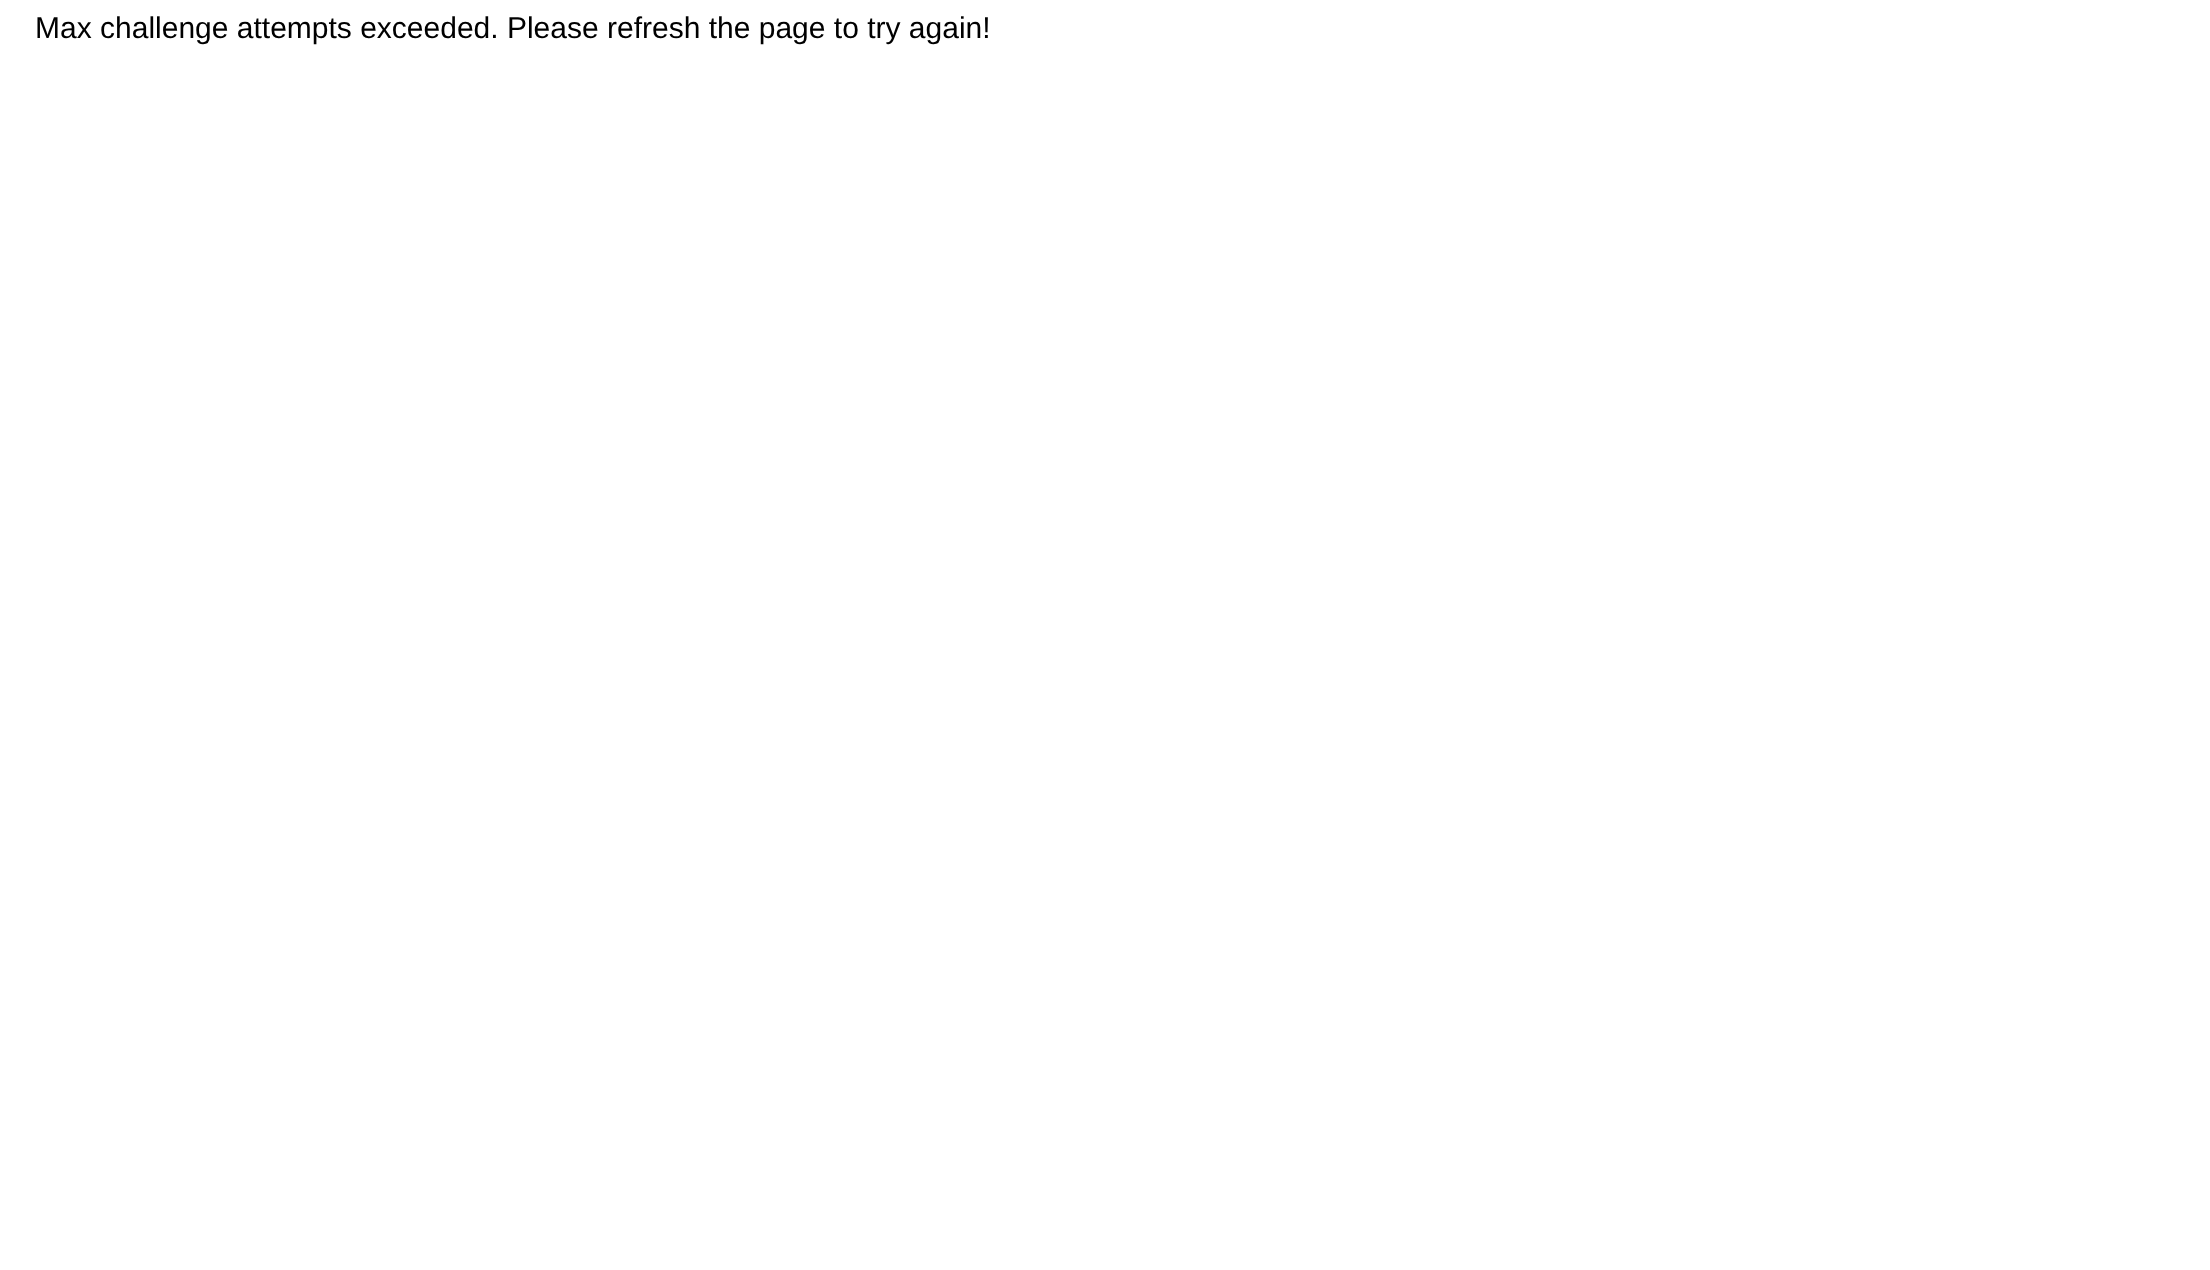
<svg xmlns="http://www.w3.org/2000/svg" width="2210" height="1270">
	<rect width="100%" height="100%" fill="#FFFFFF" />
	<text x="35" y="38" font-family="Liberation Sans" font-size="30" fill="#000000">Max challenge attempts exceeded. Please refresh the page to try again!</text>
</svg>
